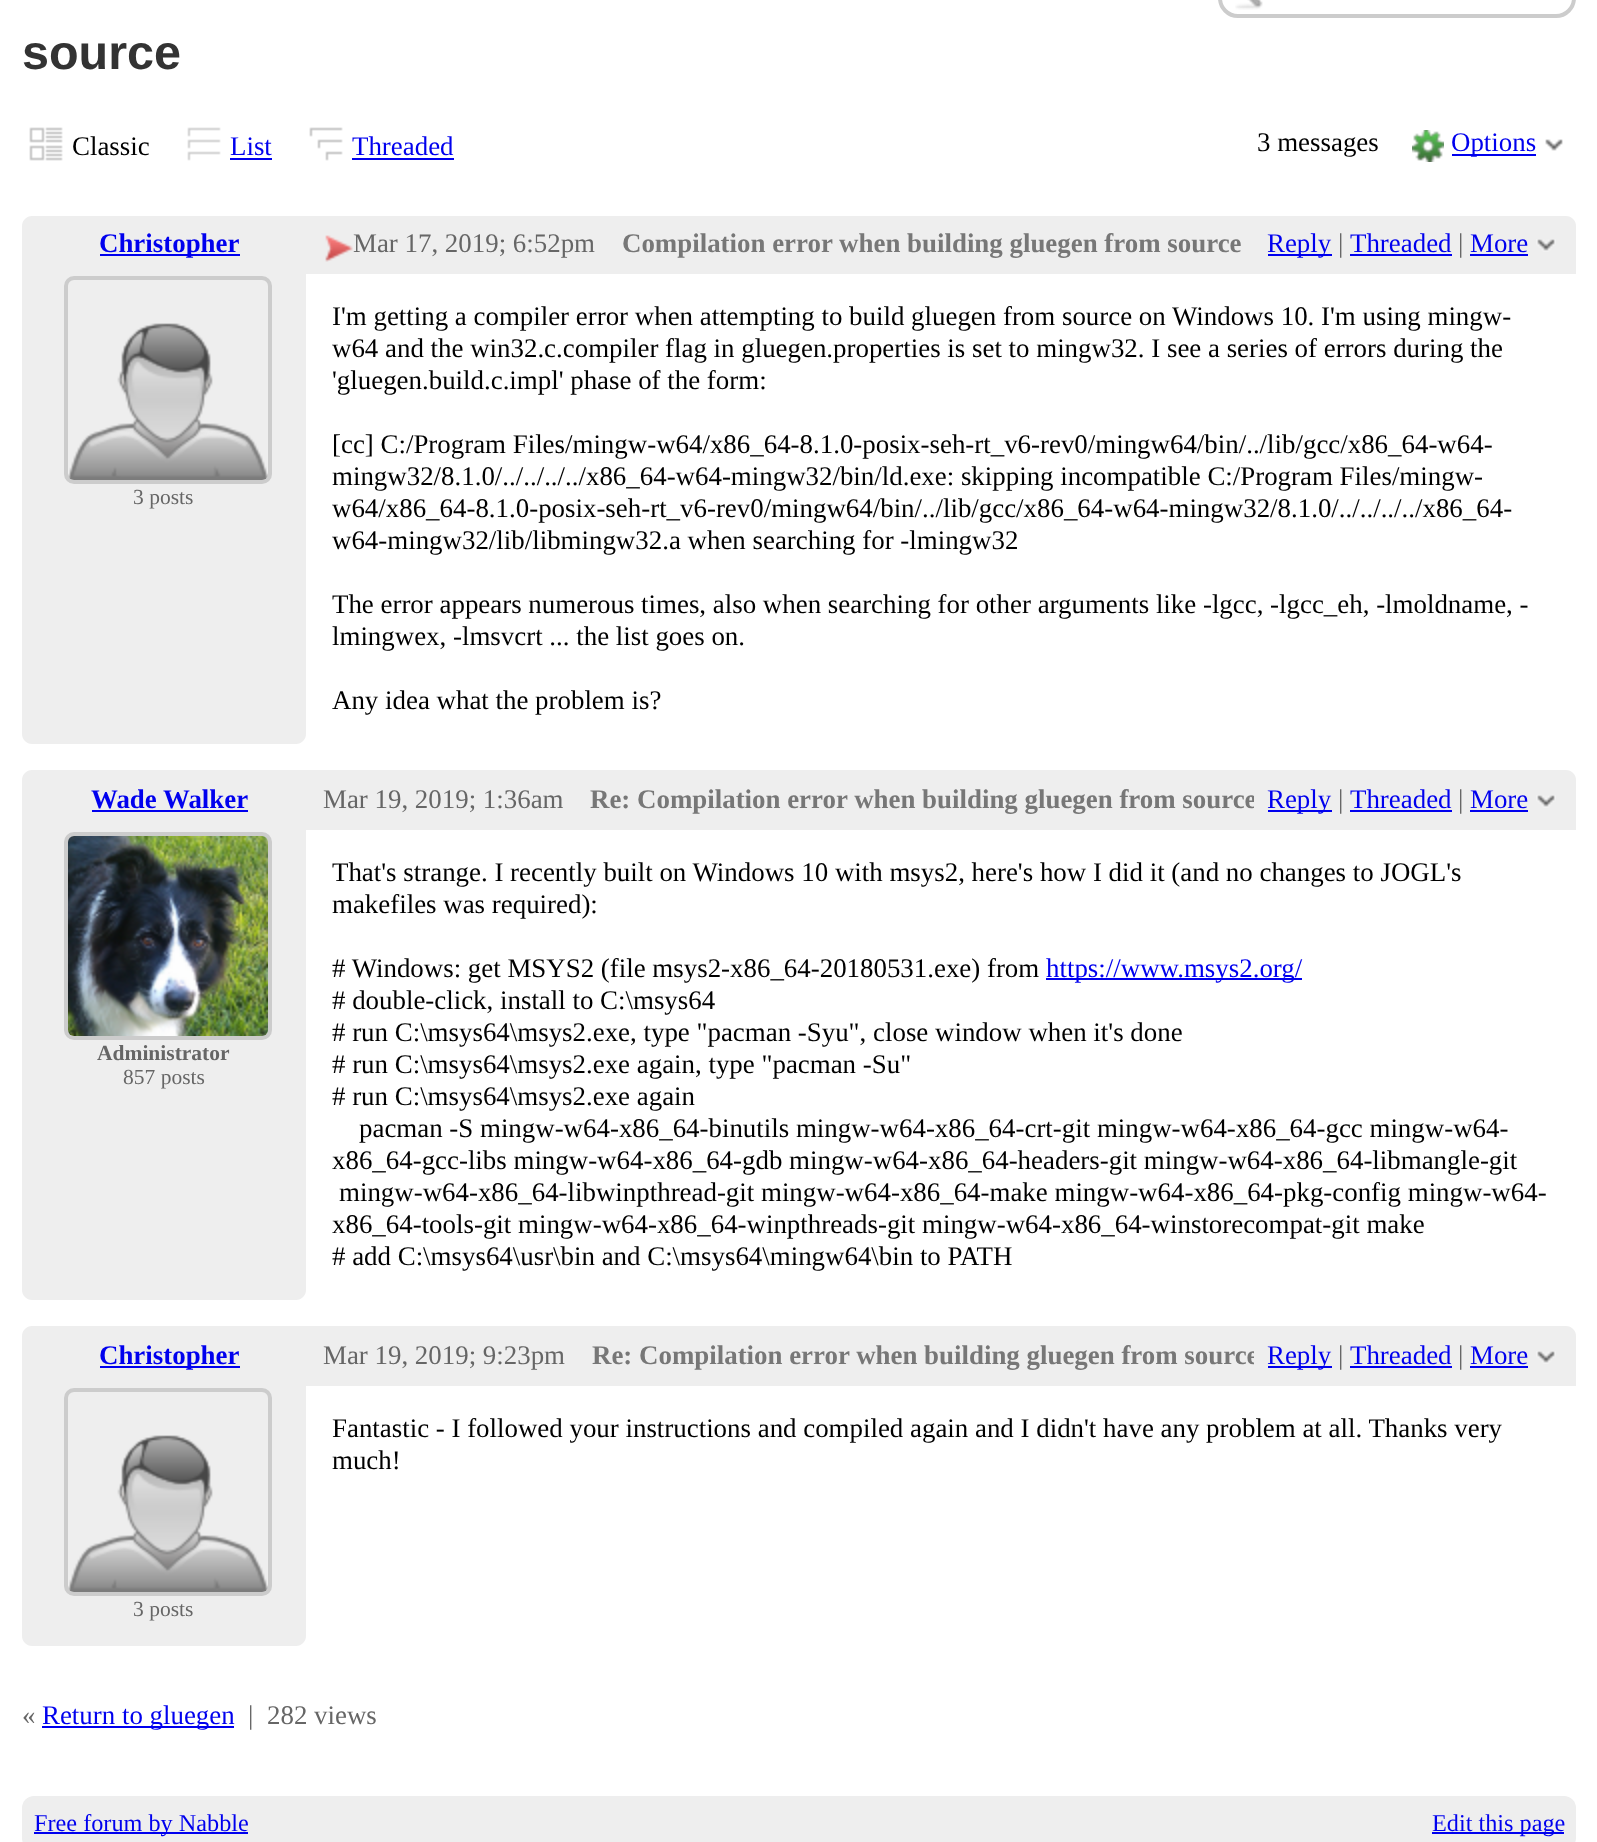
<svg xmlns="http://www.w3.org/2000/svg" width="1597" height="1842">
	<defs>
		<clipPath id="clip1"><rect x="324" y="784" width="930" height="36" /></clipPath>
		<clipPath id="clip2"><rect x="324" y="1340" width="930" height="34" /></clipPath>
	</defs>
	<rect width="100%" height="100%" fill="#FFFFFF" />
	<image x="1235" y="0" width="28" height="10" href="assets/img1.png" />
	<rect x="1220" y="-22" width="354" height="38" rx="18" fill="none" stroke="#CCCCCC" stroke-width="4" />
	<text x="22" y="69" font-family="Liberation Sans" font-size="48.5" font-weight="700" fill="#333333">source</text>
	<image x="29" y="127" width="34" height="34" href="assets/img2.png" />
	<text x="72" y="155" font-family="Liberation Serif" font-size="26.9" fill="#000000">Classic</text>
	<image x="187" y="127" width="34" height="34" href="assets/img3.png" />
	<text x="230" y="155" font-family="Liberation Serif" font-size="26.9" fill="#0000EE">List</text>
	<rect x="230" y="158" width="42" height="2" fill="#0000EE" />
	<image x="309" y="127" width="34" height="34" href="assets/img4.png" />
	<text x="352" y="155" font-family="Liberation Serif" font-size="26.9" fill="#0000EE">Threaded</text>
	<rect x="352" y="158" width="102" height="2" fill="#0000EE" />
	<text x="1257" y="151" font-family="Liberation Serif" font-size="26.9" fill="#000000">3 messages</text>
	<image x="1412" y="130" width="32" height="32" href="assets/img5.png" />
	<rect x="1452" y="154" width="84" height="2" fill="#0000EE" />
	<text x="1451" y="151" font-family="Liberation Serif" font-size="26.9" fill="#0000EE">Options</text>
	<image x="1545" y="139" width="18" height="12" href="assets/img6.png" />
	<path d="M32 216H1566C1571.5 216 1576 220.5 1576 226V274H22V226C22 220.5 26.5 216 32 216Z" fill="#EEEEEE" />
	<rect x="100" y="254" width="140" height="2" fill="#0000EE" />
	<text x="99" y="252" font-family="Liberation Serif" font-size="26.9" font-weight="700" fill="#0000EE">Christopher</text>
	<image x="325" y="235" width="28" height="27" href="assets/img7.png" />
	<text x="353" y="252" font-family="Liberation Serif" font-size="26.9" fill="#666666">Mar 17, 2019; 6:52pm</text>
	<text x="622" y="252" font-family="Liberation Serif" font-size="26.9" font-weight="700" fill="#777777">Compilation error when building gluegen from source</text>
	<rect x="1268" y="254" width="64" height="2" fill="#0000EE" />
	<text x="1267" y="252" font-family="Liberation Serif" font-size="26.9" fill="#0000EE">Reply</text>
	<text x="1338" y="252" font-family="Liberation Serif" font-size="26.9" fill="#666666">|</text>
	<text x="1350" y="252" font-family="Liberation Serif" font-size="26.9" fill="#0000EE">Threaded</text>
	<rect x="1350" y="254" width="102" height="2" fill="#0000EE" />
	<text x="1458" y="252" font-family="Liberation Serif" font-size="26.9" fill="#666666">|</text>
	<text x="1470" y="252" font-family="Liberation Serif" font-size="26.9" fill="#0000EE">More</text>
	<rect x="1470" y="254" width="58" height="2" fill="#0000EE" />
	<image x="1536" y="239" width="20" height="13" href="assets/img8.png" />
	<path d="M22 274H306V734C306 739.5 301.5 744 296 744H32C26.5 744 22 739.5 22 734Z" fill="#EEEEEE" />
	<rect x="66" y="278" width="204" height="204" rx="8" fill="none" stroke="#CCCCCC" stroke-width="4" />
	<image x="68" y="323" width="200" height="157" href="assets/img9.png" />
	<text x="133" y="504" font-family="Liberation Serif" font-size="21.5" fill="#666666">3 posts</text>
	<g font-family="Liberation Serif" font-size="26.9" fill="#000000">
		<text x="332" y="325">I'm getting a compiler error when attempting to build gluegen from source on Windows 10. I'm using mingw-</text>
		<text x="332" y="357">w64 and the win32.c.compiler flag in gluegen.properties is set to mingw32. I see a series of errors during the</text>
		<text x="332" y="389">'gluegen.build.c.impl' phase of the form:</text>
		<text x="332" y="453">[cc] C:/Program Files/mingw-w64/x86_64-8.1.0-posix-seh-rt_v6-rev0/mingw64/bin/../lib/gcc/x86_64-w64-</text>
		<text x="332" y="485">mingw32/8.1.0/../../../../x86_64-w64-mingw32/bin/ld.exe: skipping incompatible C:/Program Files/mingw-</text>
		<text x="332" y="517">w64/x86_64-8.1.0-posix-seh-rt_v6-rev0/mingw64/bin/../lib/gcc/x86_64-w64-mingw32/8.1.0/../../../../x86_64-</text>
		<text x="332" y="549">w64-mingw32/lib/libmingw32.a when searching for -lmingw32</text>
		<text x="332" y="613">The error appears numerous times, also when searching for other arguments like -lgcc, -lgcc_eh, -lmoldname, -</text>
		<text x="332" y="645">lmingwex, -lmsvcrt ... the list goes on.</text>
		<text x="332" y="709">Any idea what the problem is?</text>
	</g>
	<path d="M32 770H1566C1571.5 770 1576 774.5 1576 780V830H22V780C22 774.5 26.5 770 32 770Z" fill="#EEEEEE" />
	<text x="91" y="808" font-family="Liberation Serif" font-size="26.9" font-weight="700" fill="#0000EE">Wade Walker</text>
	<rect x="92" y="810" width="156" height="2" fill="#0000EE" />
	<text x="323" y="808" font-family="Liberation Serif" font-size="26.9" fill="#666666">Mar 19, 2019; 1:36am</text>
	<g clip-path="url(#clip1)">
		<text x="590" y="808" font-family="Liberation Serif" font-size="26.9" font-weight="700" fill="#777777">Re: Compilation error when building gluegen from source</text>
	</g>
	<rect x="1268" y="810" width="64" height="2" fill="#0000EE" />
	<text x="1267" y="808" font-family="Liberation Serif" font-size="26.9" fill="#0000EE">Reply</text>
	<text x="1338" y="808" font-family="Liberation Serif" font-size="26.9" fill="#666666">|</text>
	<text x="1350" y="808" font-family="Liberation Serif" font-size="26.9" fill="#0000EE">Threaded</text>
	<rect x="1350" y="810" width="102" height="2" fill="#0000EE" />
	<text x="1458" y="808" font-family="Liberation Serif" font-size="26.9" fill="#666666">|</text>
	<text x="1470" y="808" font-family="Liberation Serif" font-size="26.9" fill="#0000EE">More</text>
	<rect x="1470" y="810" width="58" height="2" fill="#0000EE" />
	<image x="1536" y="795" width="20" height="13" href="assets/img8.png" />
	<path d="M22 830H306V1290C306 1295.5 301.5 1300 296 1300H32C26.5 1300 22 1295.5 22 1290Z" fill="#EEEEEE" />
	<rect x="66" y="834" width="204" height="204" rx="8" fill="none" stroke="#CCCCCC" stroke-width="4" />
	<image x="68" y="836" width="200" height="200" href="assets/img10.png" />
	<text x="97" y="1060" font-family="Liberation Serif" font-size="21.5" font-weight="700" fill="#666666">Administrator</text>
	<text x="123" y="1084" font-family="Liberation Serif" font-size="21.5" fill="#666666">857 posts</text>
	<g font-family="Liberation Serif" font-size="26.9" fill="#000000">
		<text x="332" y="881">That's strange. I recently built on Windows 10 with msys2, here's how I did it (and no changes to JOGL's</text>
		<text x="332" y="913">makefiles was required):</text>
		<text x="332" y="977"># Windows: get MSYS2 (file msys2-x86_64-20180531.exe) from</text>
	</g>
	<rect x="1046" y="978" width="256" height="2" fill="#0000EE" />
	<text x="1046" y="977" font-family="Liberation Serif" font-size="26.9" fill="#0000EE">https://www.msys2.org/</text>
	<g font-family="Liberation Serif" font-size="26.9" fill="#000000">
		<text x="332" y="1009"># double-click, install to C:\msys64</text>
		<text x="332" y="1041"># run C:\msys64\msys2.exe, type "pacman -Syu", close window when it's done</text>
		<text x="332" y="1073"># run C:\msys64\msys2.exe again, type "pacman -Su"</text>
		<text x="332" y="1105"># run C:\msys64\msys2.exe again</text>
		<text x="359" y="1137">pacman -S mingw-w64-x86_64-binutils mingw-w64-x86_64-crt-git mingw-w64-x86_64-gcc mingw-w64-</text>
		<text x="332" y="1169">x86_64-gcc-libs mingw-w64-x86_64-gdb mingw-w64-x86_64-headers-git mingw-w64-x86_64-libmangle-git</text>
		<text x="339" y="1201">mingw-w64-x86_64-libwinpthread-git mingw-w64-x86_64-make mingw-w64-x86_64-pkg-config mingw-w64-</text>
		<text x="332" y="1233">x86_64-tools-git mingw-w64-x86_64-winpthreads-git mingw-w64-x86_64-winstorecompat-git make</text>
		<text x="332" y="1265"># add C:\msys64\usr\bin and C:\msys64\mingw64\bin to PATH</text>
	</g>
	<path d="M32 1326H1566C1571.5 1326 1576 1330.5 1576 1336V1386H22V1336C22 1330.5 26.5 1326 32 1326Z" fill="#EEEEEE" />
	<rect x="100" y="1366" width="140" height="2" fill="#0000EE" />
	<text x="99" y="1364" font-family="Liberation Serif" font-size="26.9" font-weight="700" fill="#0000EE">Christopher</text>
	<text x="323" y="1364" font-family="Liberation Serif" font-size="26.9" fill="#666666">Mar 19, 2019; 9:23pm</text>
	<g clip-path="url(#clip2)">
		<text x="592" y="1364" font-family="Liberation Serif" font-size="26.9" font-weight="700" fill="#777777">Re: Compilation error when building gluegen from source</text>
	</g>
	<rect x="1268" y="1366" width="64" height="2" fill="#0000EE" />
	<text x="1267" y="1364" font-family="Liberation Serif" font-size="26.9" fill="#0000EE">Reply</text>
	<text x="1338" y="1364" font-family="Liberation Serif" font-size="26.9" fill="#666666">|</text>
	<text x="1350" y="1364" font-family="Liberation Serif" font-size="26.9" fill="#0000EE">Threaded</text>
	<rect x="1350" y="1366" width="102" height="2" fill="#0000EE" />
	<text x="1458" y="1364" font-family="Liberation Serif" font-size="26.9" fill="#666666">|</text>
	<text x="1470" y="1364" font-family="Liberation Serif" font-size="26.9" fill="#0000EE">More</text>
	<rect x="1470" y="1366" width="58" height="2" fill="#0000EE" />
	<image x="1536" y="1351" width="20" height="13" href="assets/img8.png" />
	<g font-family="Liberation Serif" font-size="26.9" fill="#000000">
		<text x="332" y="1437">Fantastic - I followed your instructions and compiled again and I didn't have any problem at all. Thanks very</text>
		<text x="332" y="1469">much!</text>
	</g>
	<path d="M22 1386H306V1636C306 1641.5 301.5 1646 296 1646H32C26.5 1646 22 1641.5 22 1636Z" fill="#EEEEEE" />
	<rect x="66" y="1390" width="204" height="204" rx="8" fill="none" stroke="#CCCCCC" stroke-width="4" />
	<image x="68" y="1435" width="200" height="157" href="assets/img9.png" />
	<text x="133" y="1616" font-family="Liberation Serif" font-size="21.5" fill="#666666">3 posts</text>
	<text x="22" y="1724" font-family="Liberation Serif" font-size="26.9" fill="#666666">«</text>
	<rect x="42" y="1726" width="192" height="2" fill="#0000EE" />
	<text x="42" y="1724" font-family="Liberation Serif" font-size="26.9" fill="#0000EE">Return to gluegen</text>
	<g font-family="Liberation Serif" font-size="26.9" fill="#666666">
		<text x="248" y="1724">|</text>
		<text x="267" y="1724">282 views</text>
	</g>
	<rect x="22" y="1796" width="1554" height="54" rx="12" fill="#EEEEEE" />
	<rect x="34" y="1832" width="214" height="2" fill="#0000EE" />
	<text x="34" y="1831" font-family="Liberation Serif" font-size="24.25" fill="#0000EE">Free forum by Nabble</text>
	<rect x="1432" y="1832" width="132" height="2" fill="#0000EE" />
	<text x="1432" y="1831" font-family="Liberation Serif" font-size="24.25" fill="#0000EE">Edit this page</text>
</svg>
